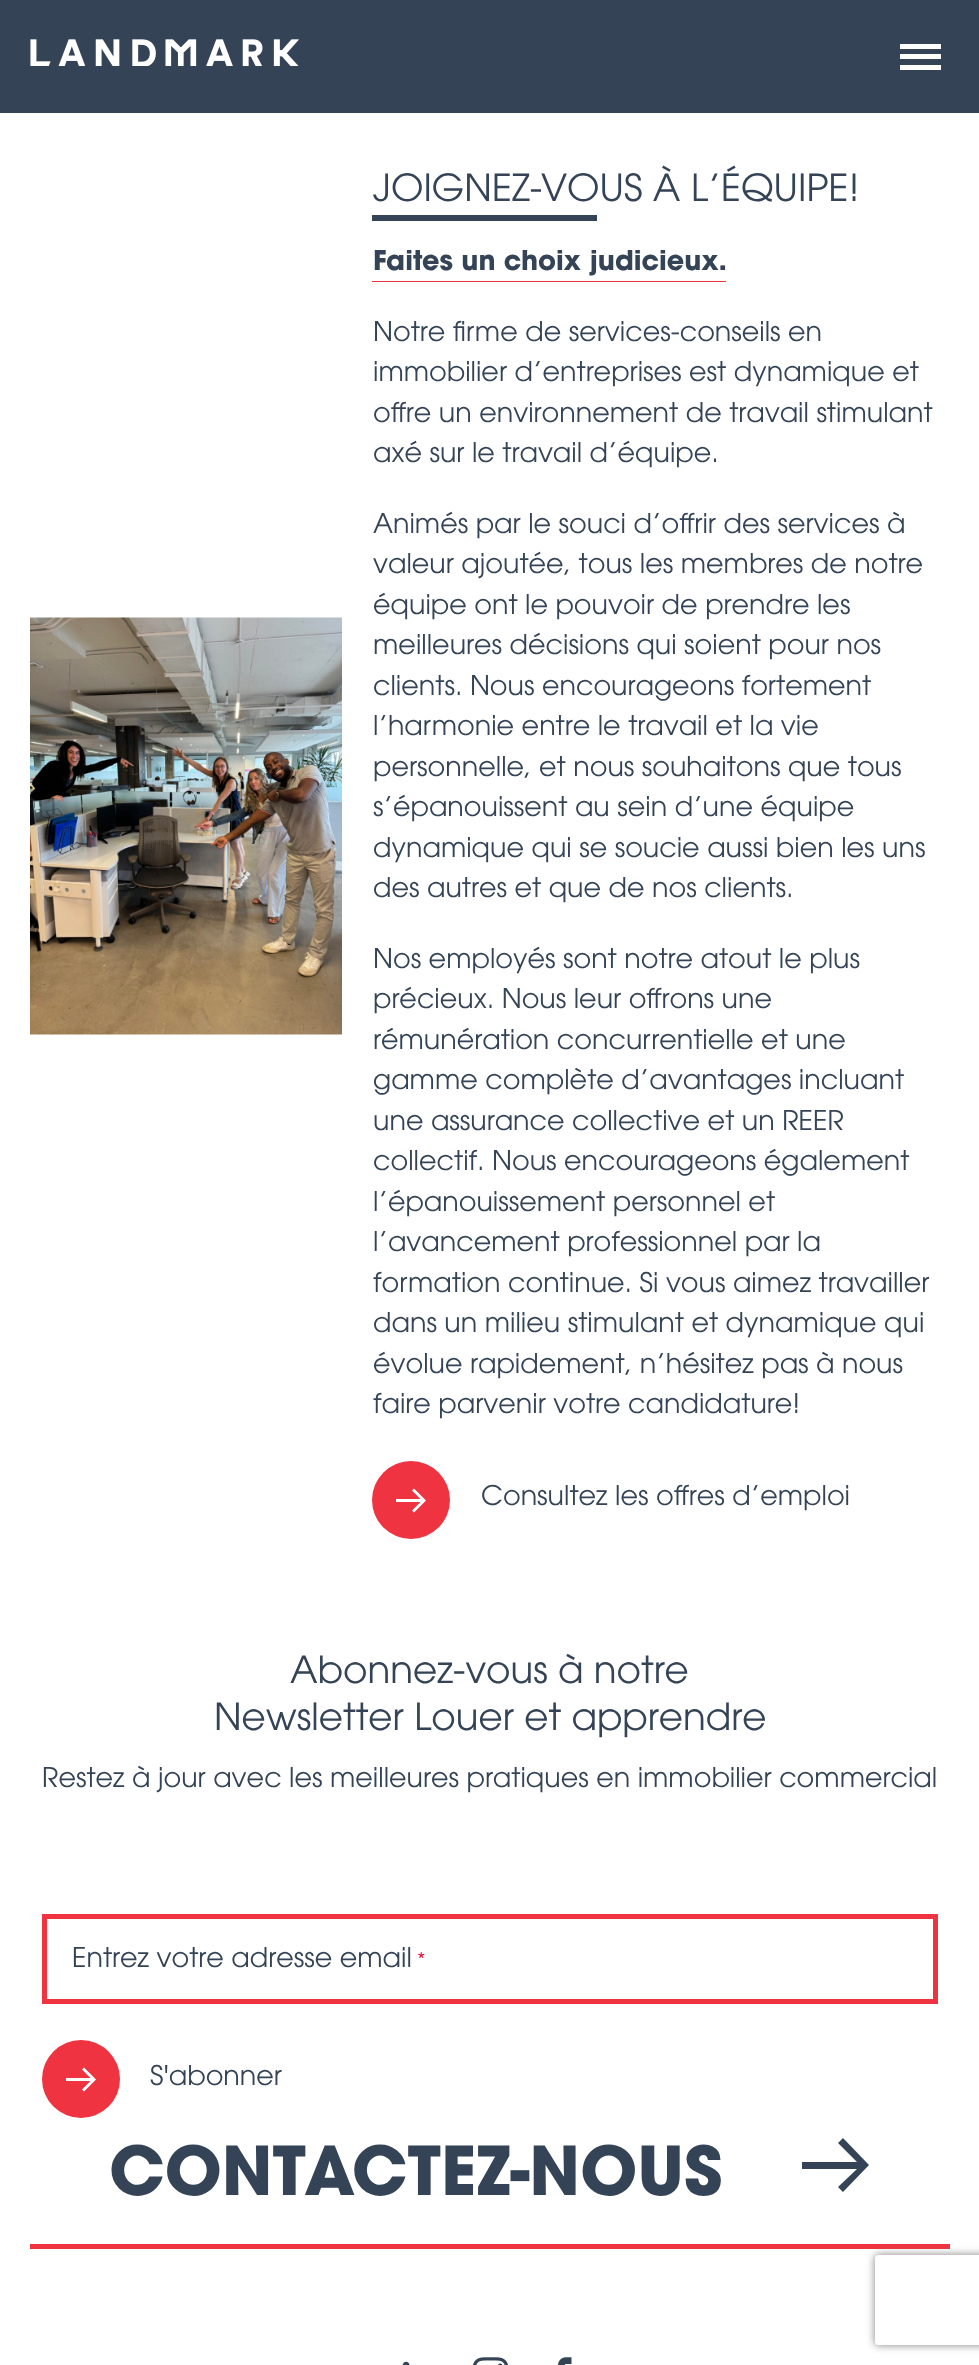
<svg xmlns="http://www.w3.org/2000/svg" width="979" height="2365">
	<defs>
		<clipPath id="clip1"><path d="M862 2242H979V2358H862ZM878 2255H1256C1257.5 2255 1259 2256.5 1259 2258V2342C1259 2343.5 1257.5 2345 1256 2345H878C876.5 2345 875 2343.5 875 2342V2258C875 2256.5 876.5 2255 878 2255Z" clip-rule="evenodd" /></clipPath>
	</defs>
	<rect width="100%" height="100%" fill="#FFFFFF" />
	<rect x="0" y="0" width="979" height="113" fill="#344456" />
	<image x="30" y="39" width="269" height="27" href="assets/img1.png" />
	<rect x="900" y="54" width="41" height="5" fill="#FFFFFF" />
	<rect x="900" y="44" width="41" height="5" fill="#FFFFFF" />
	<rect x="900" y="65" width="41" height="5" fill="#FFFFFF" />
	<image x="30" y="617" width="312" height="418" href="assets/img2.png" />
	<text x="373" y="201" font-family="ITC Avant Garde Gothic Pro" font-size="37.3" font-weight="300" fill="#344456">JOIGNEZ-VOUS À L’ÉQUIPE!</text>
	<rect x="372" y="215" width="225" height="6" fill="#344456" />
	<text x="373" y="270" font-family="ITC Avant Garde Gothic Pro" font-size="27" font-weight="700" fill="#344456">Faites un choix judicieux.</text>
	<rect x="372" y="281" width="354" height="1" fill="#EF3340" />
	<g font-family="ITC Avant Garde Gothic Pro" font-size="27" font-weight="300" fill="#344456">
		<text x="373" y="341">Notre firme de services-conseils en</text>
		<text x="373" y="381">immobilier d’entreprises est dynamique et</text>
		<text x="373" y="422">offre un environnement de travail stimulant</text>
		<text x="373" y="462">axé sur le travail d’équipe.</text>
		<text x="373" y="533">Animés par le souci d’offrir des services à</text>
		<text x="373" y="573">valeur ajoutée, tous les membres de notre</text>
		<text x="373" y="614">équipe ont le pouvoir de prendre les</text>
		<text x="373" y="654">meilleures décisions qui soient pour nos</text>
		<text x="373" y="695">clients. Nous encourageons fortement</text>
		<text x="373" y="735">l’harmonie entre le travail et la vie</text>
		<text x="373" y="776">personnelle, et nous souhaitons que tous</text>
		<text x="373" y="816">s’épanouissent au sein d’une équipe</text>
		<text x="373" y="857">dynamique qui se soucie aussi bien les uns</text>
		<text x="373" y="897">des autres et que de nos clients.</text>
		<text x="373" y="968">Nos employés sont notre atout le plus</text>
		<text x="373" y="1008">précieux. Nous leur offrons une</text>
		<text x="373" y="1049">rémunération concurrentielle et une</text>
		<text x="373" y="1089">gamme complète d’avantages incluant</text>
		<text x="373" y="1130">une assurance collective et un REER</text>
		<text x="373" y="1170">collectif. Nous encourageons également</text>
		<text x="373" y="1211">l’épanouissement personnel et</text>
		<text x="373" y="1251">l’avancement professionnel par la</text>
		<text x="373" y="1292">formation continue. Si vous aimez travailler</text>
		<text x="373" y="1332">dans un milieu stimulant et dynamique qui</text>
		<text x="373" y="1373">évolue rapidement, n’hésitez pas à nous</text>
		<text x="373" y="1413">faire parvenir votre candidature!</text>
	</g>
	<circle cx="411" cy="1500" r="39" fill="#EF3340" />
	<path d="M414 1488.5L412 1490.5L420.5 1499H396V1502H420.5L412 1510.5L414 1512.5L426 1500.5Z" fill="#FFFFFF" />
	<text x="481" y="1505" font-family="ITC Avant Garde Gothic Pro" font-size="27" font-weight="300" fill="#344456">Consultez les offres d’emploi</text>
	<g font-family="ITC Avant Garde Gothic Pro" font-size="37.3" font-weight="300" fill="#344456">
		<text x="290" y="1683">Abonnez-vous à notre</text>
		<text x="214" y="1730">Newsletter Louer et apprendre</text>
	</g>
	<text x="42" y="1787" font-family="ITC Avant Garde Gothic Pro" font-size="27" font-weight="300" fill="#344456">Restez à jour avec les meilleures pratiques en immobilier commercial</text>
	<rect x="44.5" y="1916.5" width="891" height="85" fill="none" stroke="#EF3340" stroke-width="5" />
	<text x="72" y="1967" font-family="ITC Avant Garde Gothic Pro" font-size="27" font-weight="300" fill="#344456">Entrez votre adresse email</text>
	<text x="417" y="1967" font-family="ITC Avant Garde Gothic Pro" font-size="20" font-weight="300" fill="#E9022C">*</text>
	<circle cx="81" cy="2079" r="39" fill="#EF3340" />
	<path d="M84 2067.5L82 2069.5L90.5 2078H66V2081H90.5L82 2089.5L84 2091.5L96 2079.5Z" fill="#FFFFFF" />
	<text x="150" y="2085" font-family="ITC Avant Garde Gothic Pro" font-size="27" font-weight="300" fill="#344456">S'abonner</text>
	<text x="109" y="2195" font-family="ITC Avant Garde Gothic Pro" font-size="67" font-weight="700" fill="#344456">CONTACTEZ-NOUS</text>
	<path d="M843 2138L838 2143L857 2162H802V2169H857L838 2187L843 2192L869 2165Z" fill="#344456" />
	<rect x="30" y="2244" width="920" height="5" fill="#EF3340" />
	<image x="402" y="2361" width="8" height="4" href="assets/img3.png" />
	<image x="473" y="2357" width="35" height="8" href="assets/img4.png" />
	<image x="558" y="2357" width="14" height="8" href="assets/img5.png" />
	<g clip-path="url(#clip1)">
		<rect x="875" y="2255" width="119" height="90" rx="3" fill="#808080" filter="blur(4px)" />
	</g>
</svg>
